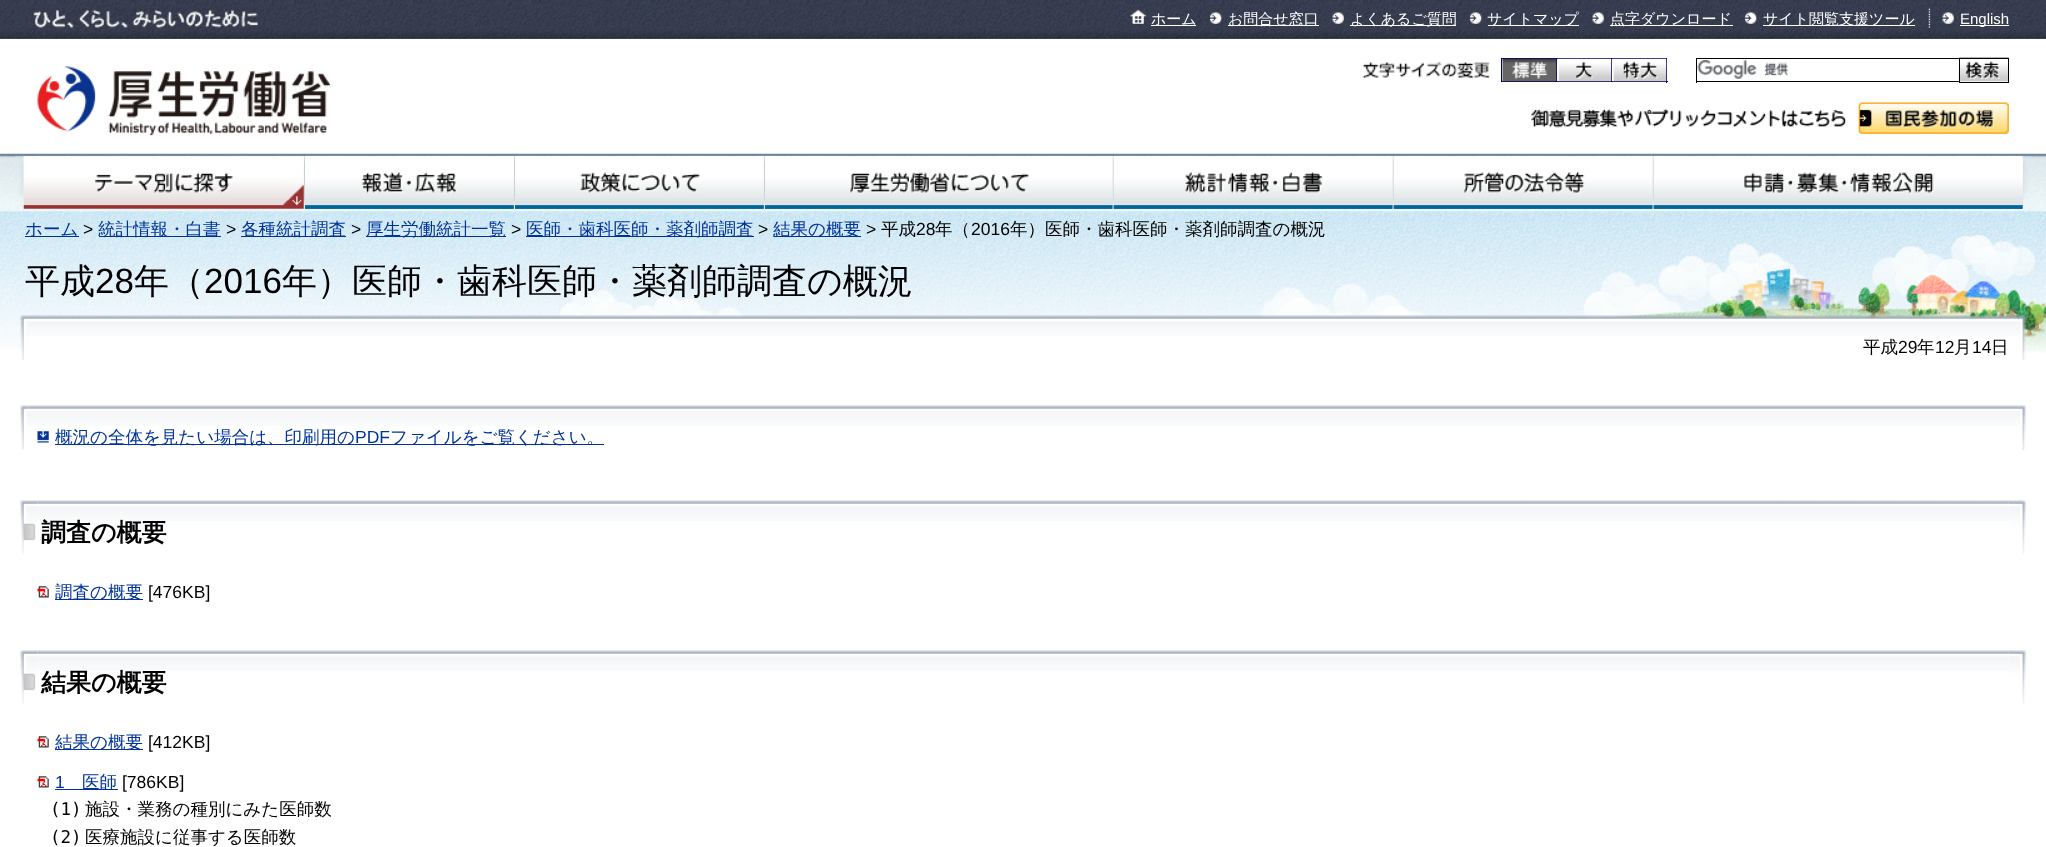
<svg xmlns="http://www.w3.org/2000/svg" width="2046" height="847">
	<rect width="100%" height="100%" fill="#FFFFFF" />
	<image x="0" y="0" width="2046" height="39" href="assets/img1.png" />
	<image x="0" y="1" width="2046" height="38" href="assets/img2.png" />
	<image x="32" y="8" width="227" height="21" href="assets/img3.png" />
	<image x="1130" y="9" width="17" height="16" href="assets/img4.png" />
	<rect x="1151" y="25" width="45" height="1" fill="#FFFFFF" />
	<text x="1151" y="24" font-family="WenQuanYi Zen Hei" font-size="15" font-weight="500" fill="#FFFFFF">ホーム</text>
	<image x="1210" y="9" width="12" height="18" href="assets/img5.png" />
	<rect x="1228" y="25" width="91" height="1" fill="#FFFFFF" />
	<text x="1228" y="24" font-family="WenQuanYi Zen Hei" font-size="15" font-weight="500" fill="#FFFFFF">お問合せ窓口</text>
	<image x="1332" y="9" width="12" height="18" href="assets/img6.png" />
	<rect x="1350" y="25" width="106" height="1" fill="#FFFFFF" />
	<text x="1350" y="24" font-family="WenQuanYi Zen Hei" font-size="15" font-weight="500" fill="#FFFFFF">よくあるご質問</text>
	<image x="1470" y="9" width="12" height="17" href="assets/img7.png" />
	<rect x="1488" y="25" width="91" height="1" fill="#FFFFFF" />
	<text x="1487" y="24" font-family="WenQuanYi Zen Hei" font-size="15" font-weight="500" fill="#FFFFFF">サイトマップ</text>
	<image x="1592" y="9" width="12" height="17" href="assets/img8.png" />
	<rect x="1610" y="25" width="123" height="1" fill="#FFFFFF" />
	<text x="1610" y="24" font-family="WenQuanYi Zen Hei" font-size="15" font-weight="500" fill="#FFFFFF">点字ダウンロード</text>
	<image x="1745" y="9" width="12" height="18" href="assets/img9.png" />
	<rect x="1763" y="25" width="152" height="1" fill="#FFFFFF" />
	<text x="1763" y="24" font-family="WenQuanYi Zen Hei" font-size="15" font-weight="500" fill="#FFFFFF">サイト閲覧支援ツール</text>
	<image x="1928" y="8" width="26" height="20" href="assets/img10.png" />
	<rect x="1960" y="25" width="49" height="1" fill="#FFFFFF" />
	<text x="1960" y="24" font-family="Liberation Sans" font-size="15" fill="#FFFFFF">English</text>
	<image x="37" y="66" width="293" height="70" href="assets/img11.png" />
	<rect x="1666" y="58" width="1" height="25" fill="#010167" />
	<rect x="1501" y="81" width="167" height="1" fill="#010167" />
	<rect x="1501" y="58" width="165" height="1" fill="#010167" />
	<rect x="1501" y="58" width="1" height="23" fill="#010167" />
	<rect x="1556" y="58" width="1" height="23" fill="#010167" />
	<image x="1502" y="58" width="55" height="24" href="assets/img12.png" />
	<image x="1362" y="61" width="128" height="18" href="assets/img13.png" />
	<rect x="1611" y="58" width="1" height="23" fill="#010167" />
	<image x="1557" y="58" width="55" height="24" href="assets/img14.png" />
	<image x="1612" y="58" width="55" height="24" href="assets/img15.png" />
	<rect x="1696" y="58" width="263" height="1" fill="#000000" />
	<rect x="1696" y="81" width="263" height="1" fill="#000000" />
	<rect x="1696" y="58" width="1" height="25" fill="#000000" />
	<image x="1697" y="60" width="92" height="19" href="assets/img16.png" />
	<image x="1958" y="57" width="51" height="25" href="assets/img17.png" />
	<rect x="1959.5" y="58.5" width="49" height="24" fill="none" stroke="#000000" />
	<image x="1531" y="108" width="316" height="20" href="assets/img18.png" />
	<image x="1858" y="102" width="151" height="32" href="assets/img19.png" />
	<image x="0" y="153" width="2046" height="59" href="assets/img20.png" />
	<image x="856" y="156" width="1176" height="53" href="assets/img21.png" />
	<image x="15" y="156" width="1175" height="53" href="assets/img22.png" />
	<image x="303" y="156" width="211" height="53" href="assets/img25.png" />
	<image x="23" y="156" width="281" height="53" href="assets/img23.png" />
	<image x="95" y="172" width="138" height="22" href="assets/img24.png" />
	<image x="513" y="156" width="251" height="53" href="assets/img27.png" />
	<image x="305" y="156" width="209" height="53" href="assets/img26.png" />
	<image x="763" y="156" width="350" height="53" href="assets/img29.png" />
	<image x="515" y="156" width="249" height="53" href="assets/img28.png" />
	<image x="1112" y="156" width="281" height="53" href="assets/img31.png" />
	<image x="765" y="156" width="348" height="53" href="assets/img30.png" />
	<image x="1392" y="156" width="261" height="53" href="assets/img33.png" />
	<image x="1113" y="156" width="280" height="53" href="assets/img32.png" />
	<image x="1652" y="156" width="371" height="53" href="assets/img35.png" />
	<image x="1393" y="156" width="260" height="53" href="assets/img34.png" />
	<image x="1653" y="156" width="370" height="53" href="assets/img36.png" />
	<image x="0" y="211" width="2046" height="138" href="assets/img37.png" />
	<image x="558" y="215" width="1488" height="138" href="assets/img38.png" />
	<rect x="25" y="236" width="54" height="1" fill="#003399" />
	<text x="25" y="235" font-family="WenQuanYi Zen Hei" font-size="17.5" font-weight="500" fill="#003399">ホーム</text>
	<text x="83" y="235" font-family="Liberation Sans" font-size="17.5" fill="#000000">&gt;</text>
	<rect x="99" y="236" width="122" height="1" fill="#003399" />
	<text x="98" y="235" font-family="WenQuanYi Zen Hei" font-size="17.5" font-weight="500" fill="#003399">統計情報・白書</text>
	<text x="226" y="235" font-family="Liberation Sans" font-size="17.5" fill="#000000">&gt;</text>
	<rect x="241" y="236" width="105" height="1" fill="#003399" />
	<text x="241" y="235" font-family="WenQuanYi Zen Hei" font-size="17.5" font-weight="500" fill="#003399">各種統計調査</text>
	<text x="351" y="235" font-family="Liberation Sans" font-size="17.5" fill="#000000">&gt;</text>
	<rect x="366" y="236" width="140" height="1" fill="#003399" />
	<text x="366" y="235" font-family="WenQuanYi Zen Hei" font-size="17.5" font-weight="500" fill="#003399">厚生労働統計一覧</text>
	<text x="511" y="235" font-family="Liberation Sans" font-size="17.5" fill="#000000">&gt;</text>
	<rect x="526" y="236" width="228" height="1" fill="#003399" />
	<text x="526" y="235" font-family="WenQuanYi Zen Hei" font-size="17.5" font-weight="500" fill="#003399">医師・歯科医師・薬剤師調査</text>
	<text x="758" y="235" font-family="Liberation Sans" font-size="17.5" fill="#000000">&gt;</text>
	<rect x="774" y="236" width="87" height="1" fill="#003399" />
	<text x="773" y="235" font-family="WenQuanYi Zen Hei" font-size="17.5" font-weight="500" fill="#003399">結果の概要</text>
	<text x="866" y="235" font-family="Liberation Sans" font-size="17.5" fill="#000000">&gt;</text>
	<text x="881" y="235" font-family="WenQuanYi Zen Hei" font-size="17.5" font-weight="500" fill="#000000">平成</text>
	<text x="916" y="235" font-family="Liberation Sans" font-size="17.5" fill="#000000">28</text>
	<text x="935" y="235" font-family="WenQuanYi Zen Hei" font-size="17.5" font-weight="500" fill="#000000">年（</text>
	<text x="971" y="235" font-family="Liberation Sans" font-size="17.5" fill="#000000">2016</text>
	<text x="1010" y="235" font-family="WenQuanYi Zen Hei" font-size="17.5" font-weight="500" fill="#000000">年）医師・歯科医師・薬剤師調査の概況</text>
	<text x="25" y="293" font-family="WenQuanYi Zen Hei" font-size="35" font-weight="500" fill="#000000">平成</text>
	<text x="95" y="293" font-family="Liberation Sans" font-size="35" fill="#000000">28</text>
	<text x="134" y="293" font-family="WenQuanYi Zen Hei" font-size="35" font-weight="500" fill="#000000">年（</text>
	<text x="204" y="293" font-family="Liberation Sans" font-size="35" fill="#000000">2016</text>
	<text x="282" y="293" font-family="WenQuanYi Zen Hei" font-size="35" font-weight="500" fill="#000000">年）医師・歯科医師・薬剤師調査の概況</text>
	<rect x="24" y="320" width="1999" height="33" fill="#FFFFFF" />
	<image x="20" y="315" width="8" height="45" href="assets/img39.png" />
	<image x="2018" y="315" width="9" height="45" href="assets/img40.png" />
	<image x="27" y="315" width="1992" height="21" href="assets/img41.png" />
	<text x="1863" y="353" font-family="WenQuanYi Zen Hei" font-size="17.5" font-weight="500" fill="#000000">平成</text>
	<text x="1898" y="353" font-family="Liberation Sans" font-size="17.5" fill="#000000">29</text>
	<text x="1917" y="353" font-family="WenQuanYi Zen Hei" font-size="17.5" font-weight="500" fill="#000000">年</text>
	<text x="1935" y="353" font-family="Liberation Sans" font-size="17.5" fill="#000000">12</text>
	<text x="1954" y="353" font-family="WenQuanYi Zen Hei" font-size="17.5" font-weight="500" fill="#000000">月</text>
	<text x="1972" y="353" font-family="Liberation Sans" font-size="17.5" fill="#000000">14</text>
	<text x="1991" y="353" font-family="WenQuanYi Zen Hei" font-size="17.5" font-weight="500" fill="#000000">日</text>
	<image x="20" y="405" width="8" height="45" href="assets/img42.png" />
	<image x="2018" y="405" width="9" height="45" href="assets/img43.png" />
	<image x="27" y="405" width="1992" height="21" href="assets/img44.png" />
	<image x="37" y="431" width="12" height="12" href="assets/img45.png" />
	<rect x="55" y="444" width="549" height="1" fill="#003399" />
	<text x="55" y="443" font-family="WenQuanYi Zen Hei" font-size="17.5" font-weight="500" fill="#003399">概況の全体を見たい場合は、印刷用の</text>
	<text x="355" y="443" font-family="Liberation Sans" font-size="17.5" fill="#003399">PDF</text>
	<text x="390" y="443" font-family="WenQuanYi Zen Hei" font-size="17.5" font-weight="500" fill="#003399">ファイルをご覧ください。</text>
	<image x="2008" y="500" width="19" height="54" href="assets/img46.png" />
	<image x="20" y="500" width="18" height="54" href="assets/img47.png" />
	<image x="37" y="500" width="1972" height="21" href="assets/img48.png" />
	<text x="41" y="541" font-family="WenQuanYi Zen Hei" font-size="25" font-weight="700" fill="#000000">調査の概要</text>
	<image x="37" y="586" width="12" height="12" href="assets/img49.png" />
	<rect x="55" y="599" width="88" height="1" fill="#003399" />
	<text x="55" y="598" font-family="WenQuanYi Zen Hei" font-size="17.5" font-weight="500" fill="#003399">調査の概要</text>
	<text x="148" y="598" font-family="Liberation Sans" font-size="17.5" fill="#000000">[476KB]</text>
	<image x="2008" y="650" width="19" height="54" href="assets/img46.png" />
	<image x="20" y="650" width="18" height="54" href="assets/img47.png" />
	<image x="37" y="650" width="1972" height="21" href="assets/img50.png" />
	<text x="41" y="691" font-family="WenQuanYi Zen Hei" font-size="25" font-weight="700" fill="#000000">結果の概要</text>
	<image x="37" y="736" width="12" height="12" href="assets/img51.png" />
	<rect x="55" y="749" width="88" height="1" fill="#003399" />
	<text x="55" y="748" font-family="WenQuanYi Zen Hei" font-size="17.5" font-weight="500" fill="#003399">結果の概要</text>
	<text x="148" y="748" font-family="Liberation Sans" font-size="17.5" fill="#000000">[412KB]</text>
	<image x="37" y="776" width="12" height="12" href="assets/img49.png" />
	<text x="55" y="788" font-family="Liberation Sans" font-size="17.5" fill="#003399">1</text>
	<rect x="55" y="789" width="63" height="1" fill="#003399" />
	<text x="82" y="788" font-family="WenQuanYi Zen Hei" font-size="17.5" font-weight="500" fill="#003399">医師</text>
	<text x="122" y="788" font-family="Liberation Sans" font-size="17.5" fill="#000000">[786KB]</text>
	<text x="50" y="815" font-family="DejaVu Sans Mono" font-size="17.5" fill="#000000">(1)</text>
	<text x="85" y="815" font-family="WenQuanYi Zen Hei" font-size="17.5" font-weight="500" fill="#000000">施設・業務の種別にみた医師数</text>
	<text x="50" y="843" font-family="DejaVu Sans Mono" font-size="17.5" fill="#000000">(2)</text>
	<text x="85" y="843" font-family="WenQuanYi Zen Hei" font-size="17.5" font-weight="500" fill="#000000">医療施設に従事する医師数</text>
</svg>
